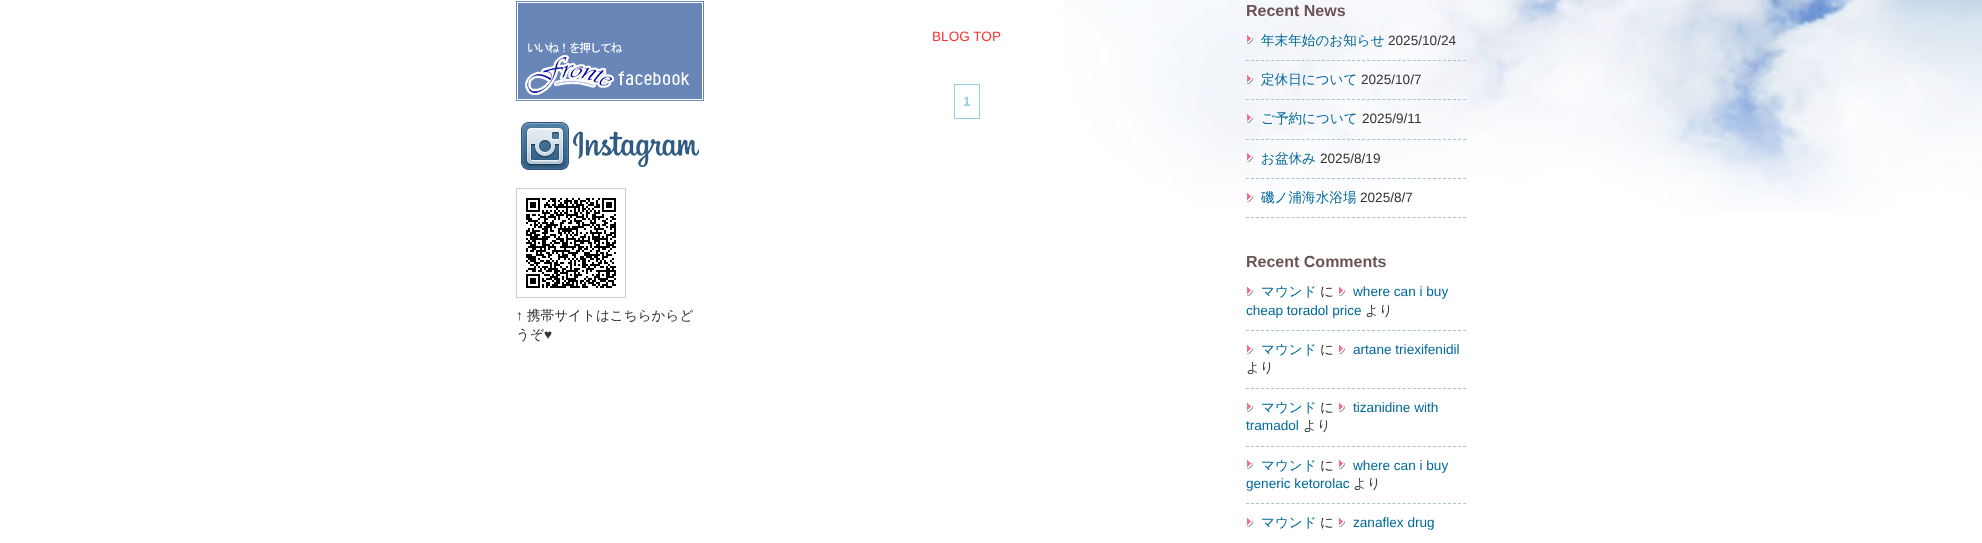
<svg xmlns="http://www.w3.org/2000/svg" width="1982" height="543">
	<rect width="100%" height="100%" fill="#FFFFFF" />
	<image x="1063" y="0" width="919" height="213" href="assets/img1.png" />
	<text x="932" y="41" font-family="Liberation Sans" font-size="13.6" fill="#FF3333">BLOG TOP</text>
	<rect x="954.5" y="84.5" width="25" height="34" fill="none" stroke="#98CDE0" />
	<text x="963" y="106" font-family="Liberation Sans" font-size="13.6" font-weight="700" fill="#98CDE0">1</text>
	<image x="516" y="1" width="188" height="100" href="assets/img2.png" />
	<image x="521" y="122" width="178" height="48" href="assets/img3.png" />
	<rect x="516.5" y="188.5" width="109" height="109" fill="none" stroke="#CCCCCC" />
	<image x="526" y="198" width="90" height="90" href="assets/img4.png" />
	<text x="516" y="320" font-family="Liberation Sans" font-size="13.6" fill="#333333">↑</text>
	<g font-family="WenQuanYi Zen Hei" font-size="13.6" font-weight="500" fill="#333333">
		<text x="527" y="320">携帯サイトはこちらからど</text>
		<text x="516" y="339">うぞ</text>
	</g>
	<text x="544" y="339" font-family="Liberation Sans" font-size="13.6" fill="#333333">♥</text>
	<text x="1246" y="16" font-family="Liberation Sans" font-size="16" font-weight="700" fill="#6C5353">Recent News</text>
	<path d="M1246 60.5H1466" fill="none" stroke="#A5C3D1" stroke-dasharray="3 2.05" />
	<image x="1246" y="34" width="7" height="10" href="assets/img5.png" />
	<text x="1261" y="45" font-family="WenQuanYi Zen Hei" font-size="13.6" font-weight="500" fill="#00699B">年末年始のお知らせ</text>
	<text x="1388" y="45" font-family="Liberation Sans" font-size="13.6" fill="#333333">2025/10/24</text>
	<path d="M1246 99.5H1466" fill="none" stroke="#A5C3D1" stroke-dasharray="3 2.05" />
	<image x="1246" y="74" width="7" height="10" href="assets/img6.png" />
	<text x="1261" y="84" font-family="WenQuanYi Zen Hei" font-size="13.6" font-weight="500" fill="#00699B">定休日について</text>
	<text x="1361" y="84" font-family="Liberation Sans" font-size="13.6" fill="#333333">2025/10/7</text>
	<path d="M1246 139.5H1466" fill="none" stroke="#A5C3D1" stroke-dasharray="3 2.05" />
	<image x="1246" y="113" width="7" height="10" href="assets/img7.png" />
	<text x="1261" y="123" font-family="WenQuanYi Zen Hei" font-size="13.6" font-weight="500" fill="#00699B">ご予約について</text>
	<text x="1362" y="123" font-family="Liberation Sans" font-size="13.6" fill="#333333">2025/9/11</text>
	<path d="M1246 178.5H1466" fill="none" stroke="#A5C3D1" stroke-dasharray="3 2.05" />
	<image x="1246" y="152" width="7" height="10" href="assets/img8.png" />
	<text x="1261" y="163" font-family="WenQuanYi Zen Hei" font-size="13.6" font-weight="500" fill="#00699B">お盆休み</text>
	<text x="1320" y="163" font-family="Liberation Sans" font-size="13.6" fill="#333333">2025/8/19</text>
	<path d="M1246 217.5H1466" fill="none" stroke="#A5C3D1" stroke-dasharray="3 2.05" />
	<image x="1247" y="193" width="6" height="9" href="assets/img9.png" />
	<text x="1261" y="202" font-family="WenQuanYi Zen Hei" font-size="13.6" font-weight="500" fill="#00699B">磯ノ浦海水浴場</text>
	<text x="1360" y="202" font-family="Liberation Sans" font-size="13.6" fill="#333333">2025/8/7</text>
	<text x="1246" y="267" font-family="Liberation Sans" font-size="16" font-weight="700" fill="#6C5353">Recent Comments</text>
	<path d="M1246 330.5H1466" fill="none" stroke="#A5C3D1" stroke-dasharray="3 2.05" />
	<image x="1247" y="287" width="6" height="9" href="assets/img10.png" />
	<text x="1261" y="296" font-family="WenQuanYi Zen Hei" font-size="13.6" font-weight="500" fill="#00699B">マウンド</text>
	<text x="1320" y="296" font-family="WenQuanYi Zen Hei" font-size="13.6" font-weight="500" fill="#333333">に</text>
	<image x="1339" y="287" width="6" height="9" href="assets/img10.png" />
	<g font-family="Liberation Sans" font-size="13.6" fill="#00699B">
		<text x="1353" y="296">where can i buy</text>
		<text x="1246" y="315">cheap toradol price</text>
	</g>
	<text x="1365" y="315" font-family="WenQuanYi Zen Hei" font-size="13.6" font-weight="500" fill="#333333">より</text>
	<path d="M1246 388.5H1466" fill="none" stroke="#A5C3D1" stroke-dasharray="3 2.05" />
	<image x="1247" y="345" width="6" height="9" href="assets/img10.png" />
	<text x="1261" y="354" font-family="WenQuanYi Zen Hei" font-size="13.6" font-weight="500" fill="#00699B">マウンド</text>
	<text x="1320" y="354" font-family="WenQuanYi Zen Hei" font-size="13.6" font-weight="500" fill="#333333">に</text>
	<image x="1339" y="345" width="6" height="9" href="assets/img10.png" />
	<text x="1353" y="354" font-family="Liberation Sans" font-size="13.6" fill="#00699B">artane triexifenidil</text>
	<text x="1246" y="372" font-family="WenQuanYi Zen Hei" font-size="13.6" font-weight="500" fill="#333333">より</text>
	<path d="M1246 446.5H1466" fill="none" stroke="#A5C3D1" stroke-dasharray="3 2.05" />
	<image x="1247" y="403" width="6" height="9" href="assets/img10.png" />
	<text x="1261" y="412" font-family="WenQuanYi Zen Hei" font-size="13.6" font-weight="500" fill="#00699B">マウンド</text>
	<text x="1320" y="412" font-family="WenQuanYi Zen Hei" font-size="13.6" font-weight="500" fill="#333333">に</text>
	<image x="1339" y="403" width="6" height="9" href="assets/img10.png" />
	<g font-family="Liberation Sans" font-size="13.6" fill="#00699B">
		<text x="1353" y="412">tizanidine with</text>
		<text x="1246" y="430">tramadol</text>
	</g>
	<text x="1303" y="430" font-family="WenQuanYi Zen Hei" font-size="13.6" font-weight="500" fill="#333333">より</text>
	<path d="M1246 503.5H1466" fill="none" stroke="#A5C3D1" stroke-dasharray="3 2.05" />
	<image x="1247" y="460" width="6" height="9" href="assets/img10.png" />
	<text x="1261" y="470" font-family="WenQuanYi Zen Hei" font-size="13.6" font-weight="500" fill="#00699B">マウンド</text>
	<text x="1320" y="470" font-family="WenQuanYi Zen Hei" font-size="13.6" font-weight="500" fill="#333333">に</text>
	<image x="1339" y="460" width="6" height="9" href="assets/img10.png" />
	<g font-family="Liberation Sans" font-size="13.6" fill="#00699B">
		<text x="1353" y="470">where can i buy</text>
		<text x="1246" y="488">generic ketorolac</text>
	</g>
	<text x="1353" y="488" font-family="WenQuanYi Zen Hei" font-size="13.6" font-weight="500" fill="#333333">より</text>
	<image x="1247" y="518" width="6" height="9" href="assets/img10.png" />
	<text x="1261" y="527" font-family="WenQuanYi Zen Hei" font-size="13.6" font-weight="500" fill="#00699B">マウンド</text>
	<text x="1320" y="527" font-family="WenQuanYi Zen Hei" font-size="13.6" font-weight="500" fill="#333333">に</text>
	<image x="1339" y="518" width="6" height="9" href="assets/img10.png" />
	<text x="1353" y="527" font-family="Liberation Sans" font-size="13.6" fill="#00699B">zanaflex drug</text>
</svg>
